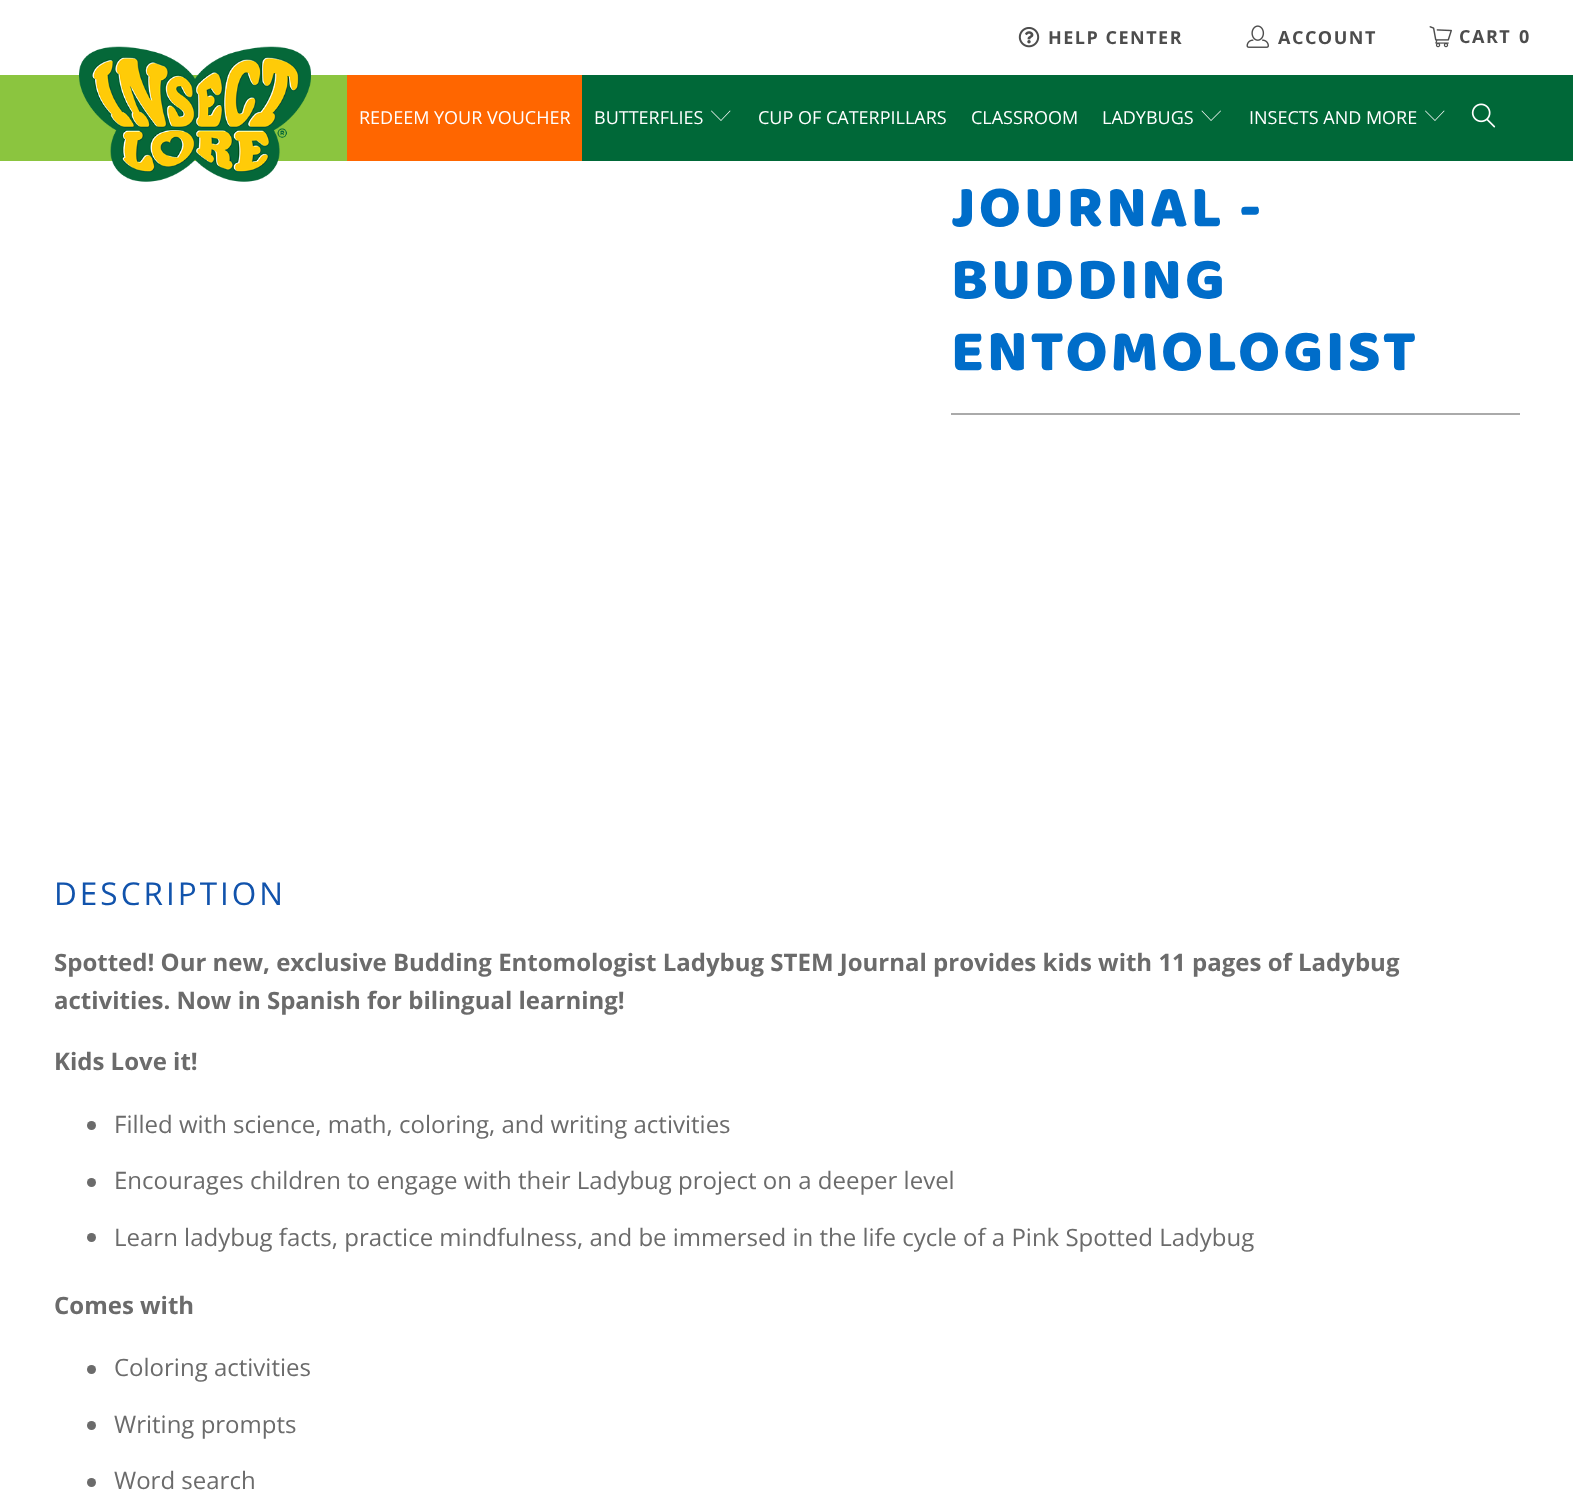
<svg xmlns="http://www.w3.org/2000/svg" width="1573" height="1495">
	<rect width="100%" height="100%" fill="#FFFFFF" />
	<image x="1018" y="27" width="22" height="21" href="assets/img1.png" />
	<text x="1048" y="44" font-family="Open Sans" font-size="18" font-weight="700" letter-spacing="1.5" fill="#4D4D4D">HELP CENTER</text>
	<image x="1246" y="25" width="23" height="23" href="assets/img2.png" />
	<text x="1278" y="44" font-family="Open Sans" font-size="18" font-weight="700" letter-spacing="1.5" fill="#4D4D4D">ACCOUNT</text>
	<image x="1429" y="26" width="23" height="22" href="assets/img3.png" />
	<g font-family="Open Sans" font-size="18" font-weight="700" letter-spacing="1.5" fill="#4D4D4D">
		<text x="1459" y="43">CART</text>
		<text x="1519" y="43">0</text>
	</g>
	<rect x="582" y="75" width="991" height="86" fill="#006838" />
	<rect x="0" y="75" width="347" height="86" fill="#8BC53F" />
	<image x="79" y="46" width="232" height="136" href="assets/img4.png" />
	<rect x="347" y="75" width="235" height="86" fill="#FF6600" />
	<g font-family="Open Sans" font-size="18" fill="#FFFFFF">
		<text x="359" y="124">REDEEM YOUR VOUCHER</text>
		<text x="594" y="124">BUTTERFLIES</text>
	</g>
	<path d="M721 121L711 111L711.5 110.5L721 120L730 110.5L730.5 111Z" fill="#FFFFFF" />
	<g font-family="Open Sans" font-size="18" fill="#FFFFFF">
		<text x="758" y="124">CUP OF CATERPILLARS</text>
		<text x="971" y="124">CLASSROOM</text>
		<text x="1102" y="124">LADYBUGS</text>
	</g>
	<path d="M1211 121L1201.5 111L1202 110.5L1211 120L1220.5 110.5L1221 111Z" fill="#FFFFFF" />
	<text x="1249" y="124" font-family="Open Sans" font-size="18" fill="#FFFFFF">INSECTS AND MORE</text>
	<path d="M1435 121L1425 111L1425.5 110.5L1435 120L1444 110.5L1444.5 111Z" fill="#FFFFFF" />
	<image x="1471" y="103" width="25" height="25" href="assets/img5.png" />
	<g font-family="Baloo" font-size="60" letter-spacing="3" fill="#006DC9">
		<text x="951" y="226">JOURNAL -</text>
		<text x="951" y="298">BUDDING</text>
		<text x="951" y="370">ENTOMOLOGIST</text>
	</g>
	<rect x="951" y="413" width="569" height="2" fill="#AAAAAA" />
	<text x="54" y="905" font-family="Open Sans" font-size="31.5" letter-spacing="3" fill="#1153AC">DESCRIPTION</text>
	<g font-family="Open Sans" font-size="24" font-weight="700" fill="#6B6B6B">
		<text x="54" y="971">Spotted! Our new, exclusive Budding Entomologist Ladybug STEM Journal provides kids with 11 pages of Ladybug</text>
		<text x="54" y="1009">activities. Now in Spanish for bilingual learning!</text>
		<text x="54" y="1070">Kids Love it!</text>
	</g>
	<circle cx="91.5" cy="1125.5" r="4.5" fill="#6B6B6B" />
	<text x="114" y="1133" font-family="Open Sans" font-size="24" fill="#6B6B6B">Filled with science, math, coloring, and writing activities</text>
	<circle cx="91.5" cy="1182.5" r="4.5" fill="#6B6B6B" />
	<text x="114" y="1189" font-family="Open Sans" font-size="24" fill="#6B6B6B">Encourages children to engage with their Ladybug project on a deeper level</text>
	<circle cx="91.5" cy="1237.5" r="4.5" fill="#6B6B6B" />
	<text x="114" y="1246" font-family="Open Sans" font-size="24" fill="#6B6B6B">Learn ladybug facts, practice mindfulness, and be immersed in the life cycle of a Pink Spotted Ladybug</text>
	<text x="54" y="1314" font-family="Open Sans" font-size="24" font-weight="700" fill="#6B6B6B">Comes with</text>
	<circle cx="91.5" cy="1369.5" r="4.5" fill="#6B6B6B" />
	<text x="114" y="1376" font-family="Open Sans" font-size="24" fill="#6B6B6B">Coloring activities</text>
	<circle cx="91.5" cy="1425.5" r="4.5" fill="#6B6B6B" />
	<text x="114" y="1433" font-family="Open Sans" font-size="24" fill="#6B6B6B">Writing prompts</text>
	<circle cx="91.5" cy="1482.5" r="4.5" fill="#6B6B6B" />
	<text x="114" y="1489" font-family="Open Sans" font-size="24" fill="#6B6B6B">Word search</text>
</svg>
